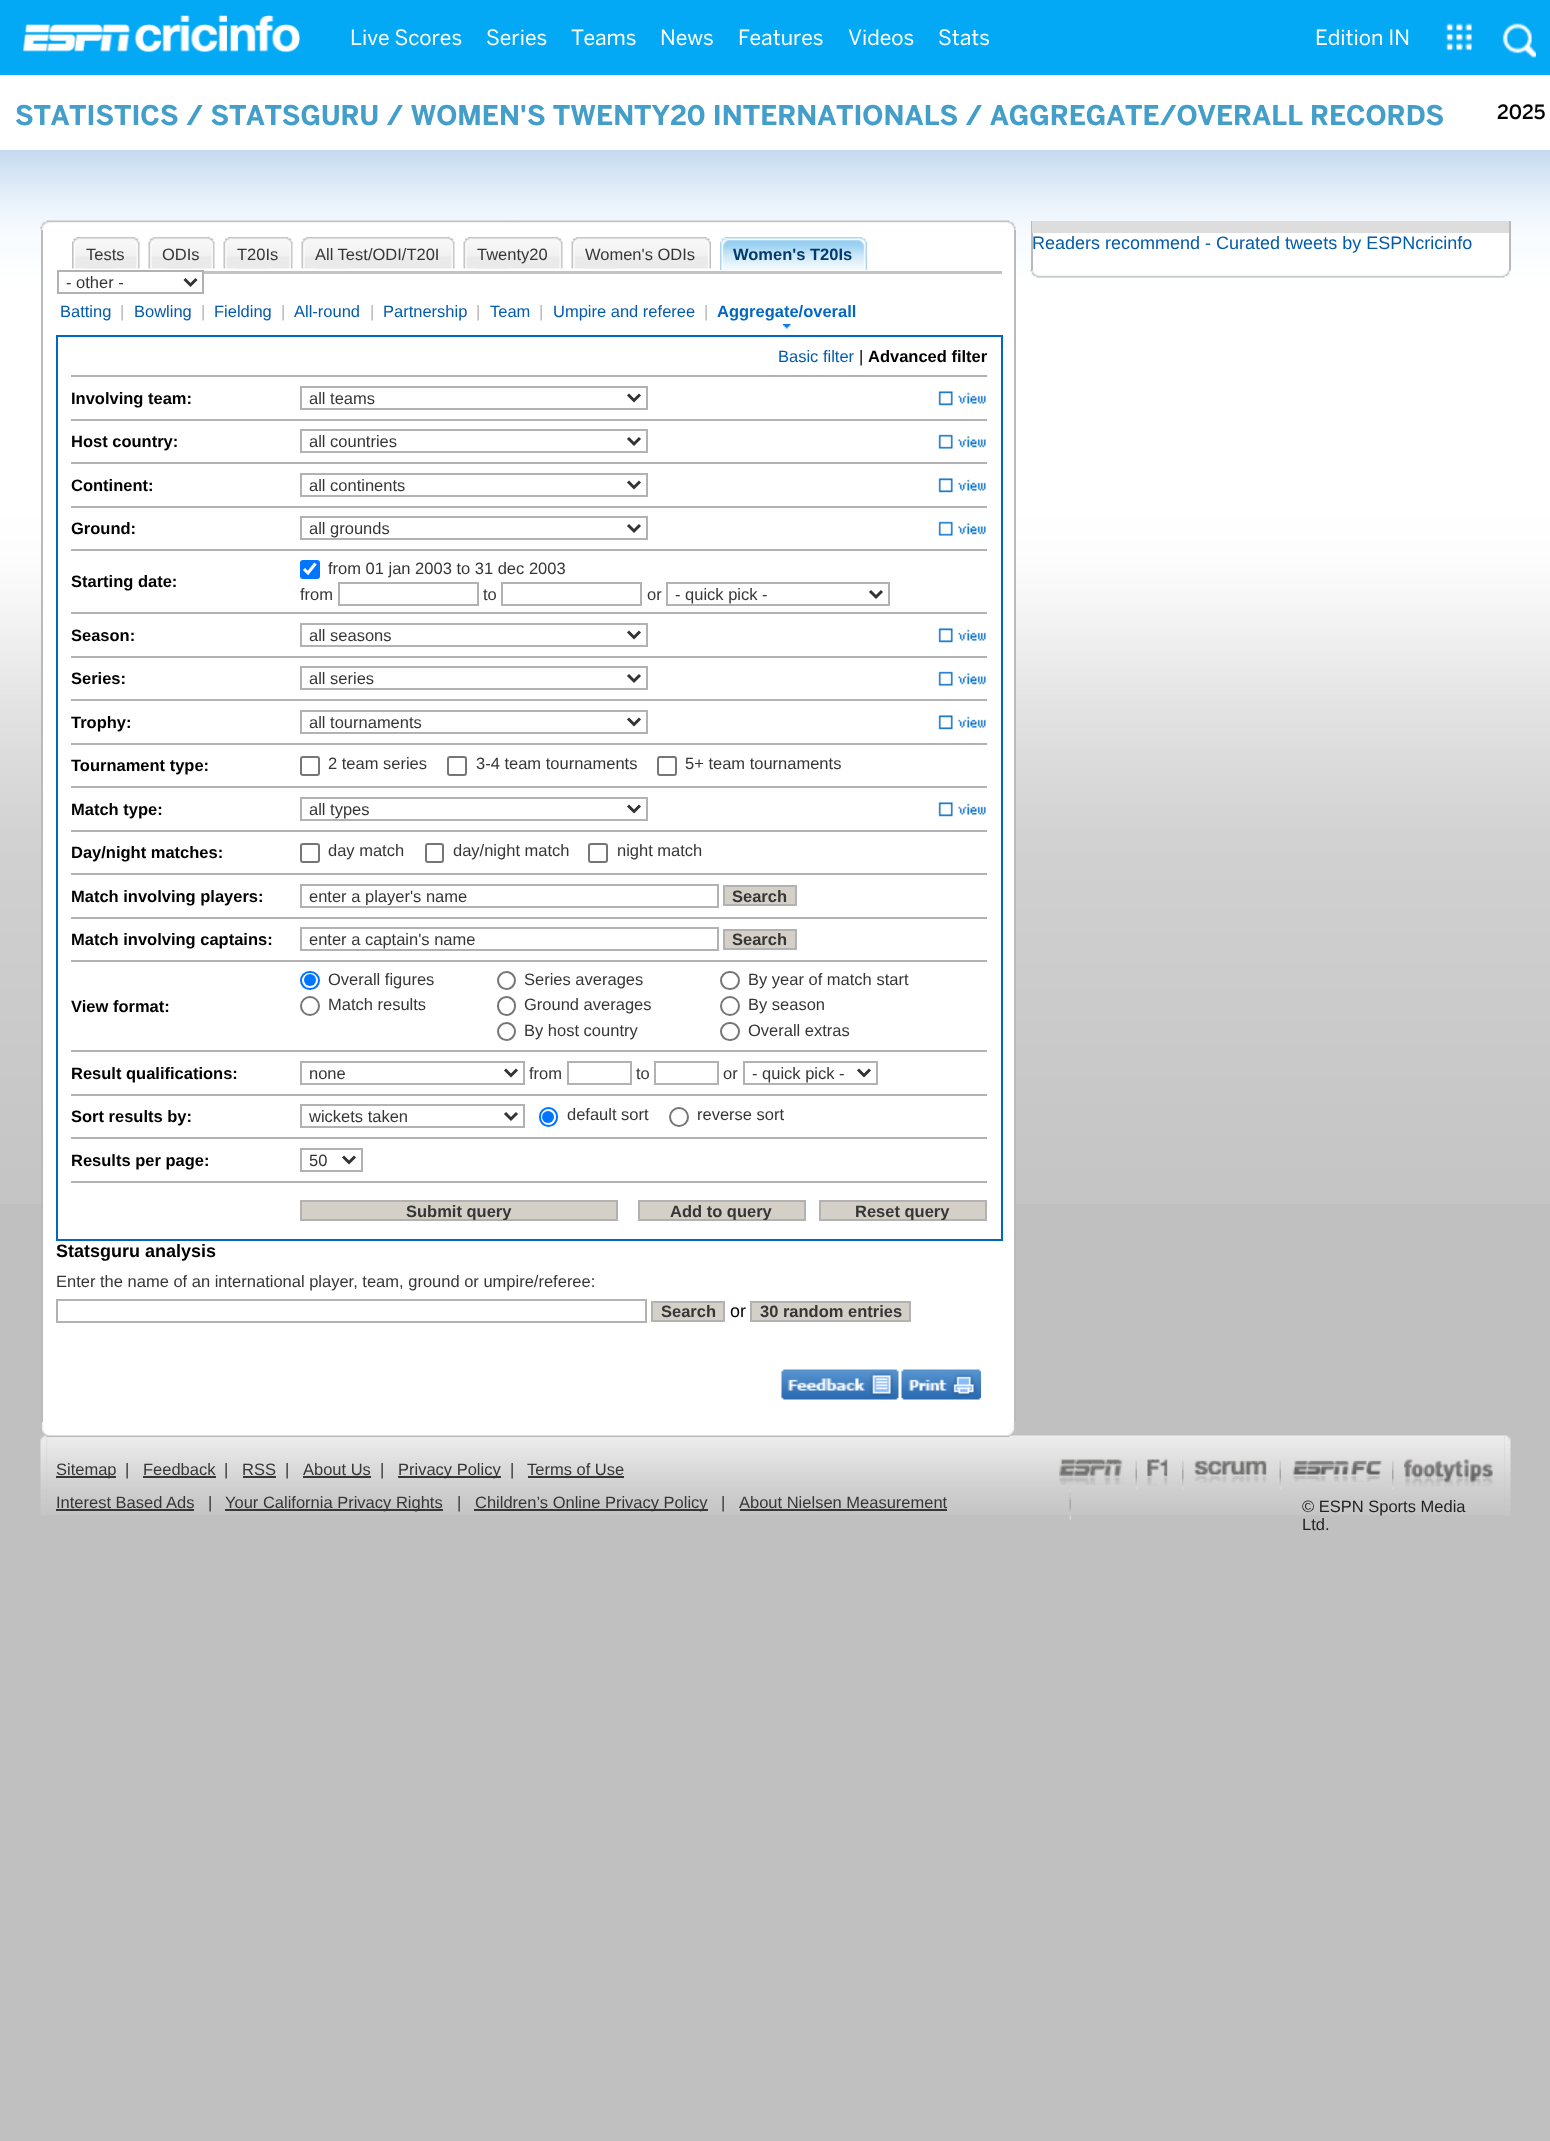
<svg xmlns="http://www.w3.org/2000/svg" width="1550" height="2141">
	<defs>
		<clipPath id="clip1"><rect x="309" y="887" width="404" height="18" /></clipPath>
		<clipPath id="clip2"><rect x="302" y="1202" width="315" height="18" /></clipPath>
		<clipPath id="clip3"><rect x="639" y="1202" width="165" height="18" /></clipPath>
		<clipPath id="clip4"><rect x="821" y="1202" width="165" height="18" /></clipPath>
	</defs>
	<rect width="100%" height="100%" fill="#C0C0C0" />
	<image x="0" y="150" width="1550" height="1054" href="assets/img1.png" />
	<rect x="0" y="0" width="1550" height="75" fill="#03A9F4" />
	<image x="22" y="15" width="278" height="38" href="assets/img2.png" />
	<g font-family="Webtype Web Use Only" font-size="21" fill="#FFFFFF">
		<text x="350" y="45">Live Scores</text>
		<text x="486" y="45">Series</text>
		<text x="571" y="45">Teams</text>
		<text x="660" y="45">News</text>
		<text x="738" y="45">Features</text>
		<text x="848" y="45">Videos</text>
		<text x="938" y="45">Stats</text>
		<text x="1315" y="45">Edition IN</text>
	</g>
	<image x="1445" y="23" width="27" height="28" href="assets/img3.png" />
	<image x="1502" y="23" width="34" height="35" href="assets/img4.png" />
	<rect x="0" y="75" width="1550" height="75" fill="#FFFFFF" />
	<text x="15" y="125" font-family="Webtype Web Use Only" font-size="27" font-weight="700" fill="#439EC9">STATISTICS / STATSGURU / WOMEN'S TWENTY20 INTERNATIONALS / AGGREGATE/OVERALL RECORDS</text>
	<text x="1497" y="119" font-family="Webtype Web Use Only" font-size="19.5" font-weight="500" fill="#000000">2025</text>
	<rect x="1033" y="233" width="476" height="35" fill="#FFFFFF" />
	<rect x="1509" y="221" width="2" height="49" fill="#BABABA" />
	<rect x="1031" y="221" width="2" height="49" fill="#BABABA" />
	<rect x="1032" y="221" width="477" height="12" fill="#DDDDDD" />
	<text x="1032" y="249" font-family="Liberation Sans" font-size="18" fill="#035BAC">Readers recommend - Curated tweets by ESPNcricinfo</text>
	<image x="1030" y="270" width="481" height="8" href="assets/img5.png" />
	<image x="40" y="220" width="976" height="10" href="assets/img6.png" />
	<rect x="43" y="230" width="971" height="1192" fill="#FFFFFF" />
	<rect x="1014" y="230" width="2" height="1192" fill="#BABABA" />
	<rect x="41" y="230" width="2" height="1192" fill="#BABABA" />
	<rect x="204" y="271" width="798" height="3" fill="#C3C3C3" />
	<image x="72" y="237" width="46" height="32" href="assets/img7.png" />
	<image x="86" y="237" width="54" height="32" href="assets/img8.png" />
	<text x="86" y="260" font-family="Liberation Sans" font-size="16.5" fill="#363636">Tests</text>
	<image x="148" y="237" width="46" height="32" href="assets/img9.png" />
	<image x="162" y="237" width="53" height="32" href="assets/img10.png" />
	<text x="162" y="260" font-family="Liberation Sans" font-size="16.5" fill="#363636">ODIs</text>
	<image x="223" y="237" width="46" height="32" href="assets/img11.png" />
	<image x="237" y="237" width="56" height="32" href="assets/img12.png" />
	<text x="237" y="260" font-family="Liberation Sans" font-size="16.5" fill="#363636">T20Is</text>
	<image x="301" y="237" width="46" height="32" href="assets/img13.png" />
	<image x="315" y="237" width="140" height="32" href="assets/img14.png" />
	<text x="315" y="260" font-family="Liberation Sans" font-size="16.5" fill="#363636">All Test/ODI/T20I</text>
	<image x="463" y="237" width="46" height="32" href="assets/img9.png" />
	<image x="477" y="237" width="86" height="32" href="assets/img15.png" />
	<text x="477" y="260" font-family="Liberation Sans" font-size="16.5" fill="#363636">Twenty20</text>
	<image x="571" y="237" width="46" height="32" href="assets/img16.png" />
	<image x="585" y="237" width="126" height="32" href="assets/img17.png" />
	<text x="585" y="260" font-family="Liberation Sans" font-size="16.5" fill="#363636">Women's ODIs</text>
	<image x="720" y="237" width="44" height="33" href="assets/img18.png" />
	<image x="764" y="237" width="103" height="33" href="assets/img19.png" />
	<text x="733" y="260" font-family="Liberation Sans" font-size="16.5" font-weight="700" fill="#023A6E">Women's T20Is</text>
	<rect x="58" y="271" width="145" height="22" fill="none" stroke="#B2B2B2" stroke-width="2" />
	<path d="M184.5 279L190.5 285L196.5 279" fill="none" stroke="#333333" stroke-width="3" />
	<text x="66" y="288" font-family="Liberation Sans" font-size="16.5" fill="#363636">- other -</text>
	<text x="60" y="317" font-family="Liberation Sans" font-size="16.5" fill="#035BAC">Batting</text>
	<text x="120" y="317" font-family="Liberation Sans" font-size="16.5" fill="#B4B4B4">|</text>
	<text x="134" y="317" font-family="Liberation Sans" font-size="16.5" fill="#035BAC">Bowling</text>
	<text x="201" y="317" font-family="Liberation Sans" font-size="16.5" fill="#B4B4B4">|</text>
	<text x="214" y="317" font-family="Liberation Sans" font-size="16.5" fill="#035BAC">Fielding</text>
	<text x="281" y="317" font-family="Liberation Sans" font-size="16.5" fill="#B4B4B4">|</text>
	<text x="294" y="317" font-family="Liberation Sans" font-size="16.5" fill="#035BAC">All-round</text>
	<text x="370" y="317" font-family="Liberation Sans" font-size="16.5" fill="#B4B4B4">|</text>
	<text x="383" y="317" font-family="Liberation Sans" font-size="16.5" fill="#035BAC">Partnership</text>
	<text x="476" y="317" font-family="Liberation Sans" font-size="16.5" fill="#B4B4B4">|</text>
	<text x="490" y="317" font-family="Liberation Sans" font-size="16.5" fill="#035BAC">Team</text>
	<text x="539" y="317" font-family="Liberation Sans" font-size="16.5" fill="#B4B4B4">|</text>
	<text x="553" y="317" font-family="Liberation Sans" font-size="16.5" fill="#035BAC">Umpire and referee</text>
	<text x="704" y="317" font-family="Liberation Sans" font-size="16.5" fill="#B4B4B4">|</text>
	<text x="717" y="317" font-family="Liberation Sans" font-size="16.5" font-weight="700" fill="#0068C4">Aggregate/overall</text>
	<image x="783" y="324" width="8" height="5" href="assets/img20.png" />
	<rect x="56" y="335" width="946" height="2" fill="#0068C3" />
	<rect x="1001" y="335" width="2" height="906" fill="#0068C3" />
	<rect x="56" y="1239" width="946" height="2" fill="#0068C3" />
	<rect x="56" y="335" width="2" height="906" fill="#0068C3" />
	<rect x="71" y="375" width="916" height="2" fill="#B2B2B2" />
	<text x="778" y="362" font-family="Liberation Sans" font-size="16.5" fill="#035BAC">Basic filter</text>
	<text x="859" y="362" font-family="Liberation Sans" font-size="16.5" fill="#000000">|</text>
	<text x="868" y="362" font-family="Liberation Sans" font-size="16.5" font-weight="700" fill="#000000">Advanced filter</text>
	<rect x="71" y="419" width="916" height="2" fill="#B2B2B2" />
	<text x="71" y="404" font-family="Liberation Sans" font-size="16.5" font-weight="700" fill="#000000">Involving team:</text>
	<rect x="301" y="387" width="346" height="22" fill="none" stroke="#B2B2B2" stroke-width="2" />
	<path d="M628 394.5L634 400.5L640 394.5" fill="none" stroke="#333333" stroke-width="3" />
	<text x="309" y="404" font-family="Liberation Sans" font-size="16.5" fill="#363636">all teams</text>
	<image x="938" y="391" width="48" height="15" href="assets/img21.png" />
	<rect x="71" y="462" width="916" height="2" fill="#B2B2B2" />
	<text x="71" y="447" font-family="Liberation Sans" font-size="16.5" font-weight="700" fill="#000000">Host country:</text>
	<rect x="301" y="430" width="346" height="22" fill="none" stroke="#B2B2B2" stroke-width="2" />
	<path d="M628 438L634 444L640 438" fill="none" stroke="#333333" stroke-width="3" />
	<text x="309" y="447" font-family="Liberation Sans" font-size="16.5" fill="#363636">all countries</text>
	<image x="938" y="434" width="48" height="15" href="assets/img22.png" />
	<rect x="71" y="506" width="916" height="2" fill="#B2B2B2" />
	<text x="71" y="491" font-family="Liberation Sans" font-size="16.5" font-weight="700" fill="#000000">Continent:</text>
	<rect x="301" y="474" width="346" height="22" fill="none" stroke="#B2B2B2" stroke-width="2" />
	<path d="M628 481.5L634 487.5L640 481.5" fill="none" stroke="#333333" stroke-width="3" />
	<text x="309" y="491" font-family="Liberation Sans" font-size="16.5" fill="#363636">all continents</text>
	<image x="938" y="478" width="48" height="15" href="assets/img21.png" />
	<rect x="71" y="549" width="916" height="2" fill="#B2B2B2" />
	<text x="71" y="534" font-family="Liberation Sans" font-size="16.5" font-weight="700" fill="#000000">Ground:</text>
	<rect x="301" y="517" width="346" height="22" fill="none" stroke="#B2B2B2" stroke-width="2" />
	<path d="M628 525L634 531L640 525" fill="none" stroke="#333333" stroke-width="3" />
	<text x="309" y="534" font-family="Liberation Sans" font-size="16.5" fill="#363636">all grounds</text>
	<image x="938" y="521" width="48" height="15" href="assets/img22.png" />
	<rect x="71" y="612" width="916" height="2" fill="#B2B2B2" />
	<text x="71" y="587" font-family="Liberation Sans" font-size="16.5" font-weight="700" fill="#000000">Starting date:</text>
	<rect x="300" y="560" width="20" height="19" rx="3" fill="#0075FF" />
	<path d="M304 569L308 573L315.5 563.5" fill="none" stroke="#FFFFFF" stroke-width="3.1" />
	<g font-family="Liberation Sans" font-size="16.5" fill="#363636">
		<text x="328" y="574">from 01 jan 2003 to 31 dec 2003</text>
		<text x="300" y="600">from</text>
	</g>
	<rect x="339" y="583" width="139" height="22" fill="none" stroke="#B2B2B2" stroke-width="2" />
	<text x="483" y="600" font-family="Liberation Sans" font-size="16.5" fill="#363636">to</text>
	<rect x="502" y="583" width="139" height="22" fill="none" stroke="#B2B2B2" stroke-width="2" />
	<text x="647" y="600" font-family="Liberation Sans" font-size="16.5" fill="#363636">or</text>
	<rect x="667" y="583" width="222" height="22" fill="none" stroke="#B2B2B2" stroke-width="2" />
	<path d="M870 591L876 597L882 591" fill="none" stroke="#333333" stroke-width="3" />
	<text x="675" y="600" font-family="Liberation Sans" font-size="16.5" fill="#363636">- quick pick -</text>
	<rect x="71" y="656" width="916" height="2" fill="#B2B2B2" />
	<text x="71" y="641" font-family="Liberation Sans" font-size="16.5" font-weight="700" fill="#000000">Season:</text>
	<rect x="301" y="624" width="346" height="22" fill="none" stroke="#B2B2B2" stroke-width="2" />
	<path d="M628 631.5L634 637.5L640 631.5" fill="none" stroke="#333333" stroke-width="3" />
	<text x="309" y="641" font-family="Liberation Sans" font-size="16.5" fill="#363636">all seasons</text>
	<image x="938" y="628" width="48" height="15" href="assets/img21.png" />
	<rect x="71" y="699" width="916" height="2" fill="#B2B2B2" />
	<text x="71" y="684" font-family="Liberation Sans" font-size="16.5" font-weight="700" fill="#000000">Series:</text>
	<rect x="301" y="667" width="346" height="22" fill="none" stroke="#B2B2B2" stroke-width="2" />
	<path d="M628 675L634 681L640 675" fill="none" stroke="#333333" stroke-width="3" />
	<text x="309" y="684" font-family="Liberation Sans" font-size="16.5" fill="#363636">all series</text>
	<image x="938" y="671" width="48" height="15" href="assets/img22.png" />
	<rect x="71" y="743" width="916" height="2" fill="#B2B2B2" />
	<text x="71" y="728" font-family="Liberation Sans" font-size="16.5" font-weight="700" fill="#000000">Trophy:</text>
	<rect x="301" y="711" width="346" height="22" fill="none" stroke="#B2B2B2" stroke-width="2" />
	<path d="M628 718.5L634 724.5L640 718.5" fill="none" stroke="#333333" stroke-width="3" />
	<text x="309" y="728" font-family="Liberation Sans" font-size="16.5" fill="#363636">all tournaments</text>
	<image x="938" y="715" width="48" height="15" href="assets/img21.png" />
	<rect x="71" y="786" width="916" height="2" fill="#B2B2B2" />
	<text x="71" y="771" font-family="Liberation Sans" font-size="16.5" font-weight="700" fill="#000000">Tournament type:</text>
	<rect x="301" y="757" width="18" height="18" rx="2" fill="none" stroke="#767676" stroke-width="2" />
	<text x="328" y="769" font-family="Liberation Sans" font-size="16.5" fill="#363636">2 team series</text>
	<rect x="448" y="757" width="18" height="18" rx="2" fill="none" stroke="#767676" stroke-width="2" />
	<text x="476" y="769" font-family="Liberation Sans" font-size="16.5" fill="#363636">3-4 team tournaments</text>
	<rect x="658" y="757" width="18" height="18" rx="2" fill="none" stroke="#767676" stroke-width="2" />
	<text x="685" y="769" font-family="Liberation Sans" font-size="16.5" fill="#363636">5+ team tournaments</text>
	<rect x="71" y="830" width="916" height="2" fill="#B2B2B2" />
	<text x="71" y="815" font-family="Liberation Sans" font-size="16.5" font-weight="700" fill="#000000">Match type:</text>
	<rect x="301" y="798" width="346" height="22" fill="none" stroke="#B2B2B2" stroke-width="2" />
	<path d="M628 805.5L634 811.5L640 805.5" fill="none" stroke="#333333" stroke-width="3" />
	<text x="309" y="815" font-family="Liberation Sans" font-size="16.5" fill="#363636">all types</text>
	<image x="938" y="802" width="48" height="15" href="assets/img21.png" />
	<rect x="71" y="873" width="916" height="2" fill="#B2B2B2" />
	<text x="71" y="858" font-family="Liberation Sans" font-size="16.5" font-weight="700" fill="#000000">Day/night matches:</text>
	<rect x="301" y="844" width="18" height="18" rx="2" fill="none" stroke="#767676" stroke-width="2" />
	<text x="328" y="856" font-family="Liberation Sans" font-size="16.5" fill="#363636">day match</text>
	<rect x="426" y="844" width="17" height="18" rx="2" fill="none" stroke="#767676" stroke-width="2" />
	<text x="453" y="856" font-family="Liberation Sans" font-size="16.5" fill="#363636">day/night match</text>
	<rect x="589" y="844" width="18" height="18" rx="2" fill="none" stroke="#767676" stroke-width="2" />
	<text x="617" y="856" font-family="Liberation Sans" font-size="16.5" fill="#363636">night match</text>
	<rect x="71" y="917" width="916" height="2" fill="#B2B2B2" />
	<text x="71" y="902" font-family="Liberation Sans" font-size="16.5" font-weight="700" fill="#000000">Match involving players:</text>
	<rect x="301" y="885" width="417" height="22" fill="none" stroke="#B2B2B2" stroke-width="2" />
	<g clip-path="url(#clip1)">
		<text x="309" y="902" font-family="Liberation Sans" font-size="16.5" fill="#363636">enter a player's name</text>
	</g>
	<rect x="724" y="886" width="72" height="19" fill="#D4D0C8" stroke="#B2B2B2" stroke-width="2" />
	<text x="732" y="902" font-family="Liberation Sans" font-size="16.5" font-weight="700" fill="#363636">Search</text>
	<rect x="71" y="960" width="916" height="2" fill="#B2B2B2" />
	<text x="71" y="945" font-family="Liberation Sans" font-size="16.5" font-weight="700" fill="#000000">Match involving captains:</text>
	<rect x="301" y="928" width="417" height="22" fill="none" stroke="#B2B2B2" stroke-width="2" />
	<text x="309" y="945" font-family="Liberation Sans" font-size="16.5" fill="#363636">enter a captain's name</text>
	<rect x="724" y="930" width="72" height="19" fill="#D4D0C8" stroke="#B2B2B2" stroke-width="2" />
	<text x="732" y="945" font-family="Liberation Sans" font-size="16.5" font-weight="700" fill="#363636">Search</text>
	<rect x="71" y="1050" width="916" height="2" fill="#B2B2B2" />
	<text x="71" y="1012" font-family="Liberation Sans" font-size="16.5" font-weight="700" fill="#000000">View format:</text>
	<rect x="301" y="972" width="18" height="17" rx="8.5" fill="none" stroke="#0075FF" stroke-width="2" />
	<circle cx="310" cy="980" r="6" fill="#0075FF" />
	<text x="328" y="985" font-family="Liberation Sans" font-size="16.5" fill="#363636">Overall figures</text>
	<circle cx="310" cy="1006" r="9" fill="none" stroke="#767676" stroke-width="2" />
	<text x="328" y="1010" font-family="Liberation Sans" font-size="16.5" fill="#363636">Match results</text>
	<circle cx="506.5" cy="980.5" r="8.5" fill="none" stroke="#767676" stroke-width="2" />
	<text x="524" y="985" font-family="Liberation Sans" font-size="16.5" fill="#363636">Series averages</text>
	<rect x="498" y="997" width="17" height="18" rx="8.5" fill="none" stroke="#767676" stroke-width="2" />
	<text x="524" y="1010" font-family="Liberation Sans" font-size="16.5" fill="#363636">Ground averages</text>
	<circle cx="506.5" cy="1031.5" r="8.5" fill="none" stroke="#767676" stroke-width="2" />
	<text x="524" y="1036" font-family="Liberation Sans" font-size="16.5" fill="#363636">By host country</text>
	<rect x="721" y="972" width="18" height="17" rx="8.5" fill="none" stroke="#767676" stroke-width="2" />
	<text x="748" y="985" font-family="Liberation Sans" font-size="16.5" fill="#363636">By year of match start</text>
	<circle cx="730" cy="1006" r="9" fill="none" stroke="#767676" stroke-width="2" />
	<text x="748" y="1010" font-family="Liberation Sans" font-size="16.5" fill="#363636">By season</text>
	<rect x="721" y="1023" width="18" height="17" rx="8.5" fill="none" stroke="#767676" stroke-width="2" />
	<text x="748" y="1036" font-family="Liberation Sans" font-size="16.5" fill="#363636">Overall extras</text>
	<rect x="71" y="1094" width="916" height="2" fill="#B2B2B2" />
	<text x="71" y="1079" font-family="Liberation Sans" font-size="16.5" font-weight="700" fill="#000000">Result qualifications:</text>
	<rect x="301" y="1062" width="223" height="22" fill="none" stroke="#B2B2B2" stroke-width="2" />
	<path d="M505 1069.5L511 1075.5L517 1069.5" fill="none" stroke="#333333" stroke-width="3" />
	<g font-family="Liberation Sans" font-size="16.5" fill="#363636">
		<text x="309" y="1079">none</text>
		<text x="529" y="1079">from</text>
	</g>
	<rect x="568" y="1062" width="63" height="22" fill="none" stroke="#B2B2B2" stroke-width="2" />
	<text x="636" y="1079" font-family="Liberation Sans" font-size="16.5" fill="#363636">to</text>
	<rect x="655" y="1062" width="63" height="22" fill="none" stroke="#B2B2B2" stroke-width="2" />
	<text x="723" y="1079" font-family="Liberation Sans" font-size="16.5" fill="#363636">or</text>
	<rect x="744" y="1062" width="133" height="22" fill="none" stroke="#B2B2B2" stroke-width="2" />
	<path d="M858 1069.5L864 1075.5L870 1069.5" fill="none" stroke="#333333" stroke-width="3" />
	<text x="752" y="1079" font-family="Liberation Sans" font-size="16.5" fill="#363636">- quick pick -</text>
	<rect x="71" y="1137" width="916" height="2" fill="#B2B2B2" />
	<text x="71" y="1122" font-family="Liberation Sans" font-size="16.5" font-weight="700" fill="#000000">Sort results by:</text>
	<rect x="301" y="1105" width="223" height="22" fill="none" stroke="#B2B2B2" stroke-width="2" />
	<path d="M505 1113L511 1119L517 1113" fill="none" stroke="#333333" stroke-width="3" />
	<text x="309" y="1122" font-family="Liberation Sans" font-size="16.5" fill="#363636">wickets taken</text>
	<rect x="540" y="1108" width="17" height="18" rx="8.5" fill="none" stroke="#0075FF" stroke-width="2" />
	<circle cx="548" cy="1117" r="6" fill="#0075FF" />
	<text x="567" y="1120" font-family="Liberation Sans" font-size="16.5" fill="#363636">default sort</text>
	<circle cx="679" cy="1117" r="9" fill="none" stroke="#767676" stroke-width="2" />
	<text x="697" y="1120" font-family="Liberation Sans" font-size="16.5" fill="#363636">reverse sort</text>
	<rect x="71" y="1181" width="916" height="2" fill="#B2B2B2" />
	<text x="71" y="1166" font-family="Liberation Sans" font-size="16.5" font-weight="700" fill="#000000">Results per page:</text>
	<rect x="301" y="1149" width="61" height="22" fill="none" stroke="#B2B2B2" stroke-width="2" />
	<path d="M343 1156.5L349 1162.5L355 1156.5" fill="none" stroke="#333333" stroke-width="3" />
	<text x="309" y="1166" font-family="Liberation Sans" font-size="16.5" fill="#363636">50</text>
	<rect x="301" y="1201" width="316" height="19" fill="#D4D0C8" stroke="#B2B2B2" stroke-width="2" />
	<g clip-path="url(#clip2)">
		<text x="406" y="1217" font-family="Liberation Sans" font-size="16.5" font-weight="700" fill="#363636">Submit query</text>
	</g>
	<rect x="639" y="1201" width="166" height="19" fill="#D4D0C8" stroke="#B2B2B2" stroke-width="2" />
	<g clip-path="url(#clip3)">
		<text x="670" y="1217" font-family="Liberation Sans" font-size="16.5" font-weight="700" fill="#363636">Add to query</text>
	</g>
	<rect x="820" y="1201" width="166" height="19" fill="#D4D0C8" stroke="#B2B2B2" stroke-width="2" />
	<g clip-path="url(#clip4)">
		<text x="855" y="1217" font-family="Liberation Sans" font-size="16.5" font-weight="700" fill="#363636">Reset query</text>
	</g>
	<text x="56" y="1257" font-family="Liberation Sans" font-size="18" font-weight="700" fill="#000000">Statsguru analysis</text>
	<text x="56" y="1287" font-family="Liberation Sans" font-size="16.5" fill="#363636">Enter the name of an international player, team, ground or umpire/referee:</text>
	<rect x="57" y="1300" width="589" height="22" fill="none" stroke="#B2B2B2" stroke-width="2" />
	<rect x="652" y="1302" width="72" height="19" fill="#D4D0C8" stroke="#B2B2B2" stroke-width="2" />
	<text x="661" y="1317" font-family="Liberation Sans" font-size="16.5" font-weight="700" fill="#363636">Search</text>
	<text x="730" y="1317" font-family="Liberation Sans" font-size="18" fill="#000000">or</text>
	<rect x="751" y="1302" width="159" height="19" fill="#D4D0C8" stroke="#B2B2B2" stroke-width="2" />
	<text x="760" y="1317" font-family="Liberation Sans" font-size="16.5" font-weight="700" fill="#363636">30 random entries</text>
	<image x="781" y="1369" width="118" height="31" href="assets/img23.png" />
	<image x="901" y="1369" width="80" height="31" href="assets/img24.png" />
	<image x="40" y="1435" width="7" height="81" href="assets/img26.png" />
	<image x="46" y="1435" width="1459" height="80" href="assets/img27.png" />
	<image x="42" y="1422" width="973" height="15" href="assets/img25.png" />
	<rect x="56" y="1476" width="60" height="2" fill="#363636" />
	<g font-family="Liberation Sans" font-size="16.5" fill="#363636">
		<text x="56" y="1475">Sitemap</text>
		<text x="125" y="1475">|</text>
		<text x="143" y="1475">Feedback</text>
	</g>
	<rect x="143" y="1476" width="73" height="2" fill="#363636" />
	<g font-family="Liberation Sans" font-size="16.5" fill="#363636">
		<text x="224" y="1475">|</text>
		<text x="242" y="1475">RSS</text>
	</g>
	<rect x="243" y="1476" width="33" height="2" fill="#363636" />
	<g font-family="Liberation Sans" font-size="16.5" fill="#363636">
		<text x="285" y="1475">|</text>
		<text x="303" y="1475">About Us</text>
	</g>
	<rect x="303" y="1476" width="68" height="2" fill="#363636" />
	<text x="380" y="1475" font-family="Liberation Sans" font-size="16.5" fill="#363636">|</text>
	<rect x="398" y="1476" width="103" height="2" fill="#363636" />
	<g font-family="Liberation Sans" font-size="16.5" fill="#363636">
		<text x="398" y="1475">Privacy Policy</text>
		<text x="510" y="1475">|</text>
		<text x="527" y="1475">Terms of Use</text>
	</g>
	<rect x="528" y="1476" width="96" height="2" fill="#363636" />
	<text x="56" y="1508" font-family="Liberation Sans" font-size="16.5" fill="#363636">Interest Based Ads</text>
	<rect x="56" y="1509" width="138" height="2" fill="#363636" />
	<text x="208" y="1508" font-family="Liberation Sans" font-size="16.5" fill="#363636">|</text>
	<rect x="225" y="1509" width="218" height="2" fill="#363636" />
	<g font-family="Liberation Sans" font-size="16.5" fill="#363636">
		<text x="225" y="1508">Your California Privacy Rights</text>
		<text x="457" y="1508">|</text>
	</g>
	<rect x="474" y="1509" width="234" height="2" fill="#363636" />
	<g font-family="Liberation Sans" font-size="16.5" fill="#363636">
		<text x="475" y="1508">Children’s Online Privacy Policy</text>
		<text x="721" y="1508">|</text>
		<text x="739" y="1508">About Nielsen Measurement</text>
	</g>
	<rect x="740" y="1509" width="207" height="2" fill="#363636" />
	<image x="1059" y="1459" width="64" height="26" href="assets/img28.png" />
	<image x="1135" y="1459" width="2" height="31" href="assets/img29.png" />
	<image x="1147" y="1459" width="21" height="27" href="assets/img30.png" />
	<image x="1182" y="1459" width="2" height="31" href="assets/img31.png" />
	<image x="1194" y="1460" width="73" height="23" href="assets/img32.png" />
	<image x="1279" y="1459" width="2" height="31" href="assets/img29.png" />
	<image x="1292" y="1460" width="90" height="22" href="assets/img33.png" />
	<image x="1392" y="1459" width="2" height="31" href="assets/img31.png" />
	<image x="1404" y="1459" width="89" height="28" href="assets/img34.png" />
	<image x="1069" y="1489" width="2" height="31" href="assets/img35.png" />
	<g font-family="Liberation Sans" font-size="16.5" fill="#222222">
		<text x="1302" y="1512">© ESPN Sports Media</text>
		<text x="1302" y="1530">Ltd.</text>
	</g>
	<image x="1504" y="1435" width="7" height="81" href="assets/img36.png" />
</svg>
